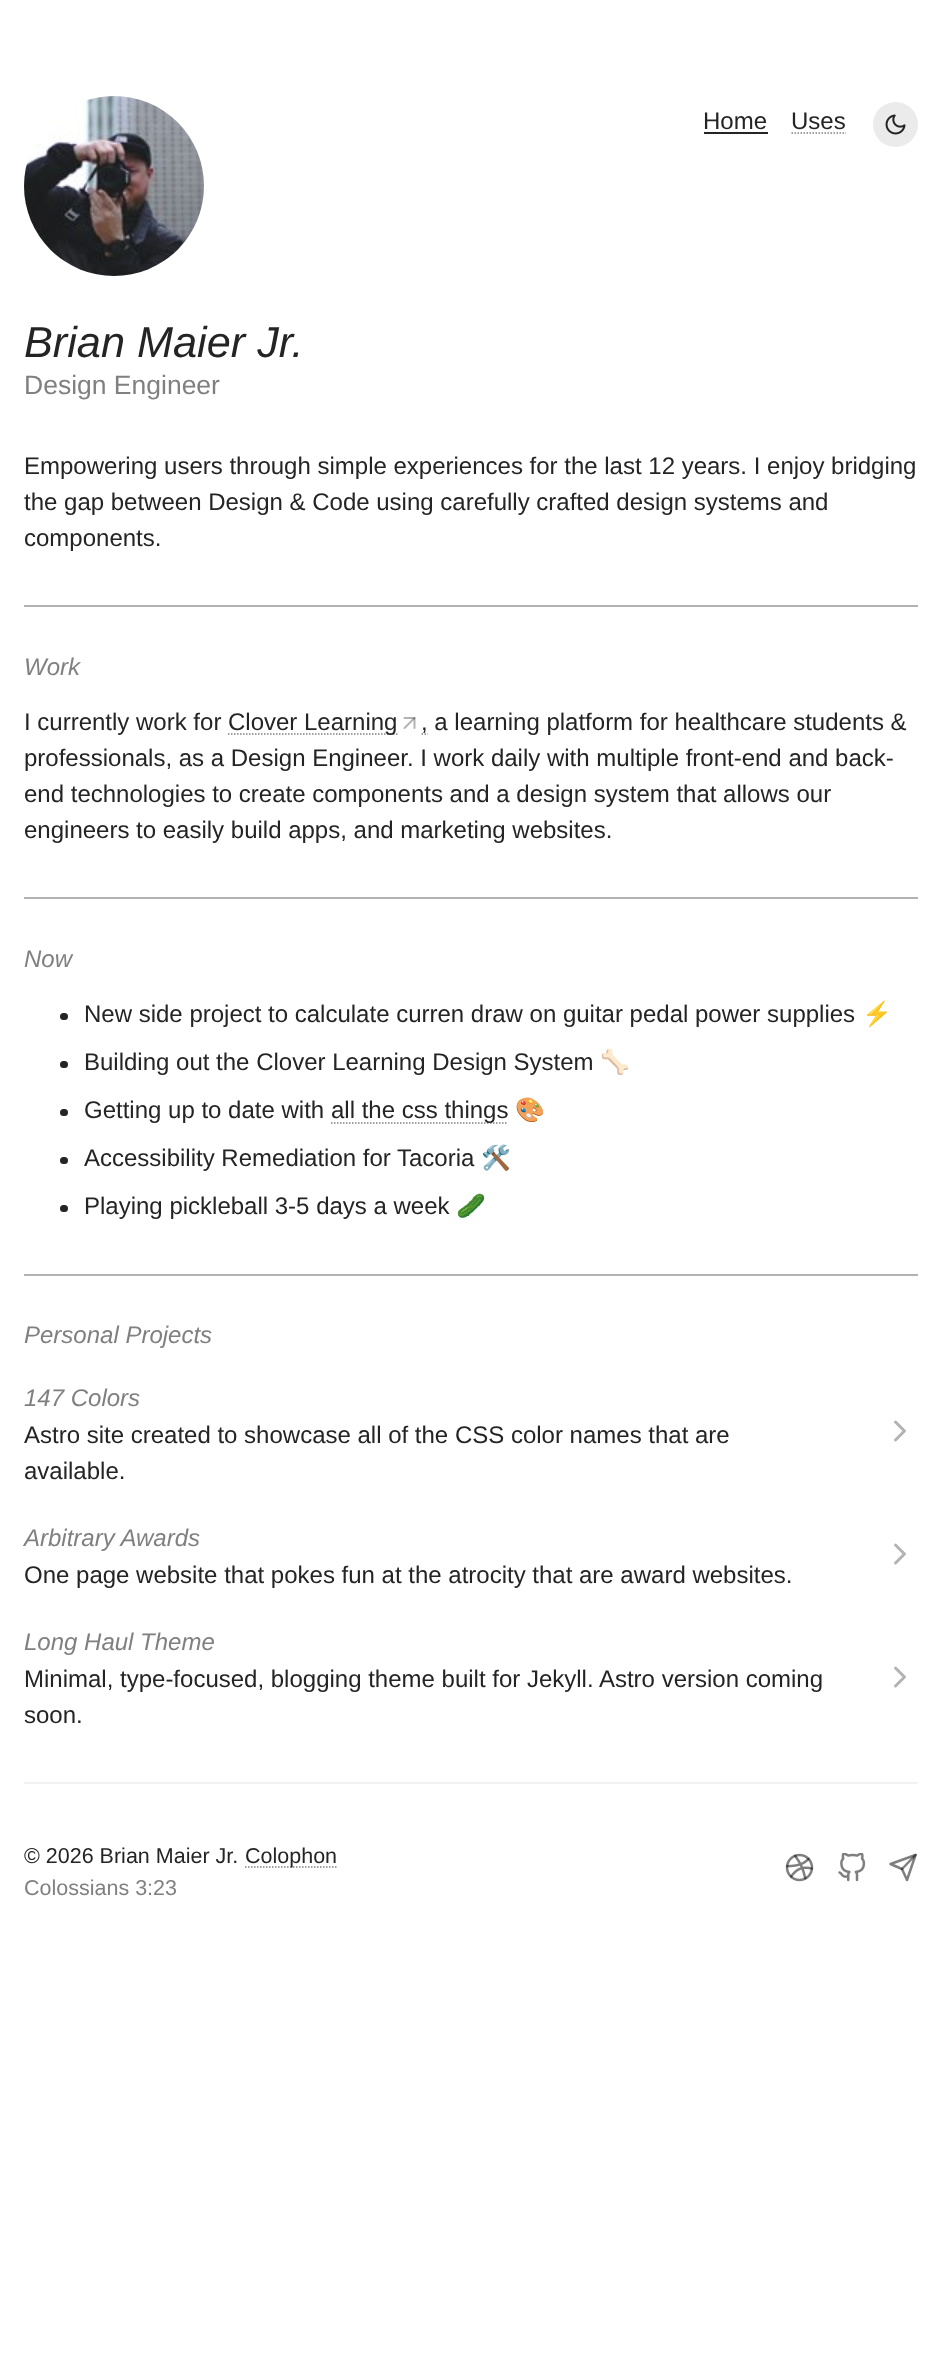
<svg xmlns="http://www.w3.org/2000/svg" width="942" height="2355">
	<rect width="100%" height="100%" fill="#FFFFFF" />
	<image x="24" y="96" width="180" height="180" href="assets/img1.png" />
	<text x="703" y="129" font-family="Liberation Sans" font-size="24" fill="#242424">Home</text>
	<rect x="704" y="132" width="64" height="2" fill="#242424" />
	<text x="791" y="129" font-family="Liberation Sans" font-size="24" fill="#242424">Uses</text>
	<path d="M791.5 133H846" fill="none" stroke="#808080" stroke-width="1.5" stroke-dasharray="1.5 1.5" />
	<circle cx="895.5" cy="124.5" r="22.5" fill="#EBEBEB" />
	<image x="885" y="114" width="21" height="21" href="assets/img2.png" />
	<text x="24" y="357" font-family="Liberation Sans" font-size="43.25" font-style="italic" fill="#242424">Brian Maier Jr.</text>
	<text x="24" y="394" font-family="Liberation Sans" font-size="26.5" fill="#808080">Design Engineer</text>
	<g font-family="Liberation Sans" font-size="24" fill="#242424">
		<text x="24" y="474">Empowering users through simple experiences for the last 12 years. I enjoy bridging</text>
		<text x="24" y="510">the gap between Design &amp; Code using carefully crafted design systems and</text>
		<text x="24" y="546">components.</text>
	</g>
	<rect x="24" y="605" width="894" height="2" fill="#B3B3B3" />
	<text x="24" y="675" font-family="Liberation Sans" font-size="24" font-style="italic" fill="#808080">Work</text>
	<text x="24" y="730" font-family="Liberation Sans" font-size="24" fill="#242424">I currently work for</text>
	<path d="M228 734H397.5" fill="none" stroke="#808080" stroke-width="1.5" stroke-dasharray="1.5 1.5" />
	<text x="228" y="730" font-family="Liberation Sans" font-size="24" fill="#242424">Clover Learning</text>
	<path d="M404.5 728L414.5 718" fill="none" stroke="#B3B3B3" stroke-width="2" stroke-linecap="round" stroke-linejoin="round" />
	<path d="M404.5 718H414.5V728" fill="none" stroke="#000000" stroke-opacity="0.3" stroke-width="2" stroke-linecap="round" stroke-linejoin="round" />
	<path d="M421.5 734H423M424.5 734H426M427.5 734H428" fill="none" stroke="#808080" stroke-width="1.5" />
	<g font-family="Liberation Sans" font-size="24" fill="#242424">
		<text x="421" y="730">, a learning platform for healthcare students &amp;</text>
		<text x="24" y="766">professionals, as a Design Engineer. I work daily with multiple front-end and back-</text>
		<text x="24" y="802">end technologies to create components and a design system that allows our</text>
		<text x="24" y="838">engineers to easily build apps, and marketing websites.</text>
	</g>
	<rect x="24" y="897" width="894" height="2" fill="#B3B3B3" />
	<text x="24" y="967" font-family="Liberation Sans" font-size="24" font-style="italic" fill="#808080">Now</text>
	<rect x="60" y="1013" width="8" height="7" rx="3.5" fill="#242424" />
	<text x="84" y="1022" font-family="Liberation Sans" font-size="24" fill="#242424">New side project to calculate curren draw on guitar pedal power supplies</text>
	<text x="862" y="1022" font-family="Noto Color Emoji" font-size="24" fill="#242424">⚡️</text>
	<rect x="60" y="1061" width="8" height="7" rx="3.5" fill="#242424" />
	<text x="84" y="1070" font-family="Liberation Sans" font-size="24" fill="#242424">Building out the Clover Learning Design System</text>
	<text x="600" y="1070" font-family="Noto Color Emoji" font-size="24" fill="#242424">🦴</text>
	<rect x="60" y="1109" width="8" height="7" rx="3.5" fill="#242424" />
	<text x="84" y="1118" font-family="Liberation Sans" font-size="24" fill="#242424">Getting up to date with</text>
	<path d="M331 1123H508" fill="none" stroke="#808080" stroke-width="1.5" stroke-dasharray="1.5 1.5" />
	<text x="331" y="1118" font-family="Liberation Sans" font-size="24" fill="#242424">all the css things</text>
	<text x="515" y="1118" font-family="Noto Color Emoji" font-size="24" fill="#242424">🎨</text>
	<rect x="60" y="1157" width="8" height="7" rx="3.5" fill="#242424" />
	<text x="84" y="1166" font-family="Liberation Sans" font-size="24" fill="#242424">Accessibility Remediation for Tacoria</text>
	<text x="481" y="1166" font-family="Noto Color Emoji" font-size="24" fill="#242424">🛠️</text>
	<rect x="60" y="1205" width="8" height="7" rx="3.5" fill="#242424" />
	<text x="84" y="1214" font-family="Liberation Sans" font-size="24" fill="#242424">Playing pickleball 3-5 days a week</text>
	<text x="456" y="1214" font-family="Noto Color Emoji" font-size="24" fill="#242424">🥒</text>
	<rect x="24" y="1274" width="894" height="2" fill="#B3B3B3" />
	<g font-family="Liberation Sans" font-size="24" font-style="italic" fill="#808080">
		<text x="24" y="1343">Personal Projects</text>
		<text x="24" y="1406">147 Colors</text>
	</g>
	<g font-family="Liberation Sans" font-size="24" fill="#242424">
		<text x="24" y="1443">Astro site created to showcase all of the CSS color names that are</text>
		<text x="24" y="1479">available.</text>
	</g>
	<path d="M895.5 1440L904.5 1431L895.5 1422" fill="none" stroke="#B3B3B3" stroke-width="3" stroke-linecap="round" stroke-linejoin="round" />
	<text x="24" y="1546" font-family="Liberation Sans" font-size="24" font-style="italic" fill="#808080">Arbitrary Awards</text>
	<text x="24" y="1583" font-family="Liberation Sans" font-size="24" fill="#242424">One page website that pokes fun at the atrocity that are award websites.</text>
	<path d="M895.5 1563L904.5 1554L895.5 1545" fill="none" stroke="#B3B3B3" stroke-width="3" stroke-linecap="round" stroke-linejoin="round" />
	<text x="24" y="1650" font-family="Liberation Sans" font-size="24" font-style="italic" fill="#808080">Long Haul Theme</text>
	<g font-family="Liberation Sans" font-size="24" fill="#242424">
		<text x="24" y="1687">Minimal, type-focused, blogging theme built for Jekyll. Astro version coming</text>
		<text x="24" y="1723">soon.</text>
	</g>
	<path d="M895.5 1686L904.5 1677L895.5 1668" fill="none" stroke="#B3B3B3" stroke-width="3" stroke-linecap="round" stroke-linejoin="round" />
	<rect x="24" y="1782" width="894" height="2" fill="#F2F2F2" />
	<text x="24" y="1863" font-family="Liberation Sans" font-size="21.5" fill="#242424">© 2026 Brian Maier Jr.</text>
	<path d="M245 1867H337.5" fill="none" stroke="#808080" stroke-width="1.5" stroke-dasharray="1.5 1.5" />
	<text x="245" y="1863" font-family="Liberation Sans" font-size="21.5" fill="#242424">Colophon</text>
	<text x="24" y="1895" font-family="Liberation Sans" font-size="21.5" fill="#808080">Colossians 3:23</text>
	<image x="785" y="1853" width="29" height="29" href="assets/img3.png" />
	<image x="838" y="1853" width="28" height="29" href="assets/img4.png" />
	<path d="M915.5 1855L902 1869" fill="none" stroke="#808080" stroke-width="2.5" stroke-linecap="round" stroke-linejoin="round" />
	<path d="M915.5 1855L907 1880L902 1869L890.5 1864Z" fill="none" stroke="#000000" stroke-opacity="0.5" stroke-width="2.5" stroke-linecap="round" stroke-linejoin="round" />
</svg>
